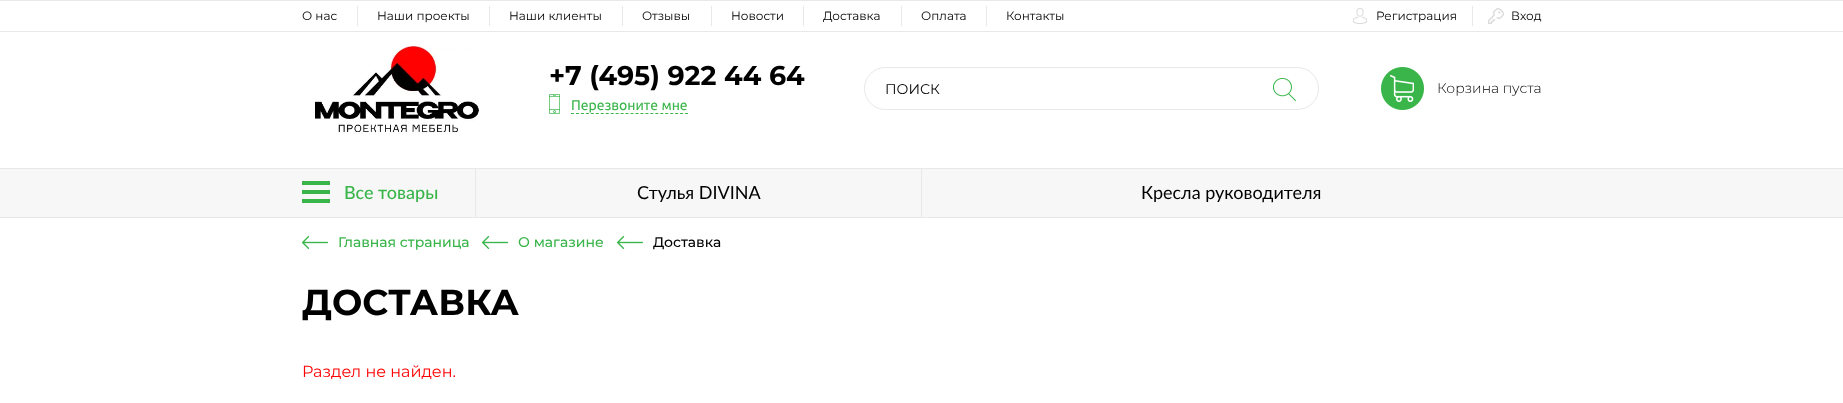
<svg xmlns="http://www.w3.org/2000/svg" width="1843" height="403">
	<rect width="100%" height="100%" fill="#FFFFFF" />
	<rect x="0" y="0" width="1843" height="1" fill="#E8E8E8" />
	<rect x="0" y="31" width="1843" height="1" fill="#E8E8E8" />
	<text x="302" y="20" font-family="Montserrat" font-size="12" fill="#000000">О нас</text>
	<rect x="357" y="6" width="1" height="20" fill="#E8E8E8" />
	<text x="377" y="20" font-family="Montserrat" font-size="12" fill="#000000">Наши проекты</text>
	<rect x="489" y="6" width="1" height="20" fill="#E8E8E8" />
	<text x="509" y="20" font-family="Montserrat" font-size="12" fill="#000000">Наши клиенты</text>
	<rect x="622" y="6" width="1" height="20" fill="#E8E8E8" />
	<text x="642" y="20" font-family="Montserrat" font-size="12" fill="#000000">Отзывы</text>
	<rect x="711" y="6" width="1" height="20" fill="#E8E8E8" />
	<text x="731" y="20" font-family="Montserrat" font-size="12" fill="#000000">Новости</text>
	<rect x="803" y="6" width="1" height="20" fill="#E8E8E8" />
	<text x="823" y="20" font-family="Montserrat" font-size="12" fill="#000000">Доставка</text>
	<rect x="901" y="6" width="1" height="20" fill="#E8E8E8" />
	<text x="921" y="20" font-family="Montserrat" font-size="12" fill="#000000">Оплата</text>
	<rect x="986" y="6" width="1" height="20" fill="#E8E8E8" />
	<text x="1006" y="20" font-family="Montserrat" font-size="12" fill="#000000">Контакты</text>
	<image x="1353" y="8" width="14" height="16" href="assets/img1.png" />
	<text x="1376" y="20" font-family="Montserrat" font-size="12" fill="#000000">Регистрация</text>
	<rect x="1472" y="6" width="1" height="20" fill="#E8E8E8" />
	<image x="1488" y="8" width="16" height="16" href="assets/img2.png" />
	<text x="1511" y="20" font-family="Montserrat" font-size="12" fill="#000000">Вход</text>
	<image x="315" y="46" width="164" height="88" href="assets/img3.png" />
	<text x="549" y="85" font-family="Montserrat" font-size="27" font-weight="700" fill="#000000">+7 (495) 922 44 64</text>
	<image x="549" y="94" width="11" height="20" href="assets/img4.png" />
	<text x="571" y="110" font-family="Ubuntu" font-size="14" fill="#39B54A">Перезвоните мне</text>
	<path d="M571 113.5H688" fill="none" stroke="#39B54A" stroke-dasharray="3 1.96" />
	<rect x="864.5" y="67.5" width="454" height="42" rx="21" fill="none" stroke="#E8E8E8" />
	<text x="885" y="94" font-family="Montserrat" font-size="14" fill="#000000">ПОИСК</text>
	<image x="1273" y="78" width="23" height="23" href="assets/img5.png" />
	<image x="1381" y="67" width="43" height="43" href="assets/img6.png" />
	<text x="1437" y="93" font-family="Montserrat" font-size="14" font-weight="300" fill="#000000">Корзина пуста</text>
	<rect x="0" y="169" width="1843" height="48" fill="#F7F7F7" />
	<rect x="0" y="168" width="1843" height="1" fill="#E8E8E8" />
	<rect x="0" y="217" width="1843" height="1" fill="#E8E8E8" />
	<image x="302" y="181" width="28" height="22" href="assets/img7.png" />
	<text x="344" y="199" font-family="Lato" font-size="18" font-weight="500" fill="#39B54A">Все товары</text>
	<rect x="475" y="169" width="1" height="48" fill="#E8E8E8" />
	<text x="637" y="199" font-family="Lato" font-size="18" fill="#000000">Стулья DIVINA</text>
	<rect x="921" y="169" width="1" height="48" fill="#E8E8E8" />
	<text x="1141" y="199" font-family="Lato" font-size="18" fill="#000000">Кресла руководителя</text>
	<image x="302" y="236" width="26" height="13" href="assets/img8.png" />
	<text x="338" y="247" font-family="Montserrat" font-size="14" font-weight="500" fill="#39B54A">Главная страница</text>
	<image x="482" y="236" width="26" height="13" href="assets/img8.png" />
	<text x="518" y="247" font-family="Montserrat" font-size="14" font-weight="500" fill="#39B54A">О магазине</text>
	<image x="617" y="236" width="26" height="13" href="assets/img8.png" />
	<text x="653" y="247" font-family="Montserrat" font-size="14" font-weight="500" fill="#000000">Доставка</text>
	<text x="302" y="315" font-family="Montserrat" font-size="36" font-weight="700" fill="#000000">ДОСТАВКА</text>
	<text x="302" y="377" font-family="Montserrat" font-size="16" fill="#FF0000">Раздел не найден.</text>
</svg>
